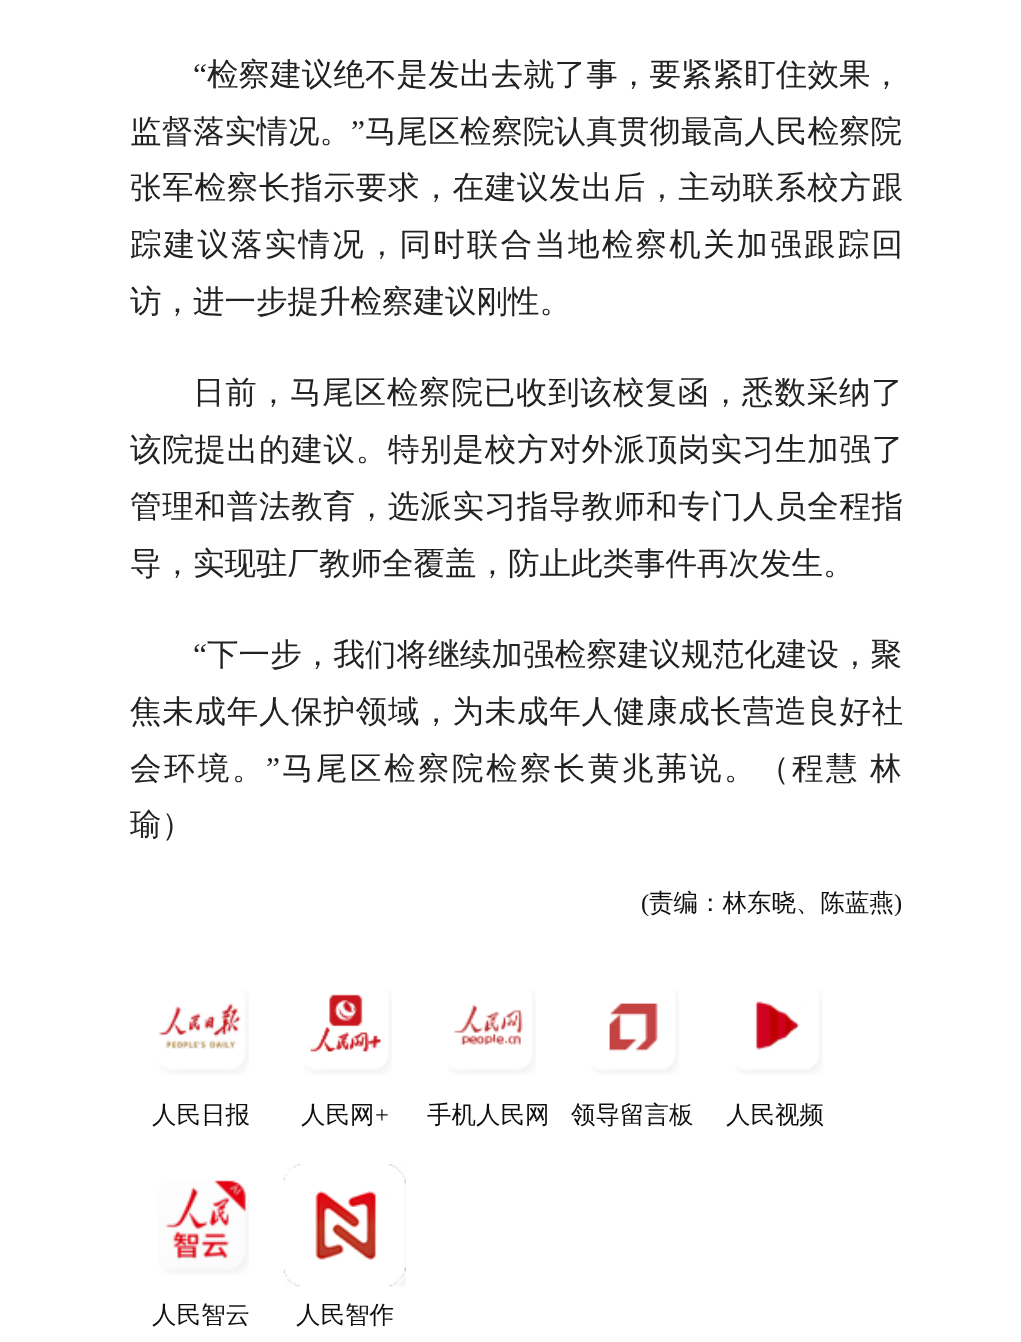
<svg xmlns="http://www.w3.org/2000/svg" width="1021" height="1342">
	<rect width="100%" height="100%" fill="#FFFFFF" />
	<text x="193" y="85" font-family="Liberation Serif" font-size="31.5" letter-spacing="0.1" fill="#222222">“</text>
	<g font-family="WenQuanYi Zen Hei" font-size="31.5" font-weight="500" letter-spacing="0.1" fill="#222222">
		<text x="207" y="85">检察建议绝不是发出去就了事，要紧紧盯住效果，</text>
		<text x="130" y="142">监督落实情况。</text>
	</g>
	<text x="351" y="142" font-family="Liberation Serif" font-size="31.5" letter-spacing="0.1" fill="#222222">”</text>
	<text x="365" y="142" font-family="WenQuanYi Zen Hei" font-size="31.5" font-weight="500" letter-spacing="0.1" fill="#222222">马尾区检察院认真贯彻最高人民检察院</text>
	<text x="130" y="198" font-family="WenQuanYi Zen Hei" font-size="31.5" font-weight="500" letter-spacing="0.75" fill="#222222">张军检察长指示要求，在建议发出后，主动联系校方跟</text>
	<text x="130" y="255" font-family="WenQuanYi Zen Hei" font-size="31.5" font-weight="500" letter-spacing="2.2" fill="#222222">踪建议落实情况，同时联合当地检察机关加强跟踪回</text>
	<text x="130" y="312" font-family="WenQuanYi Zen Hei" font-size="31.5" font-weight="500" fill="#222222">访，进一步提升检察建议刚性。</text>
	<text x="193" y="403" font-family="WenQuanYi Zen Hei" font-size="31.5" font-weight="500" letter-spacing="0.8" fill="#222222">日前，马尾区检察院已收到该校复函，悉数采纳了</text>
	<g font-family="WenQuanYi Zen Hei" font-size="31.5" font-weight="500" letter-spacing="0.75" fill="#222222">
		<text x="130" y="460">该院提出的建议。特别是校方对外派顶岗实习生加强了</text>
		<text x="130" y="517">管理和普法教育，选派实习指导教师和专门人员全程指</text>
	</g>
	<text x="130" y="574" font-family="WenQuanYi Zen Hei" font-size="31.5" font-weight="500" fill="#222222">导，实现驻厂教师全覆盖，防止此类事件再次发生。</text>
	<text x="193" y="665" font-family="Liberation Serif" font-size="31.5" letter-spacing="0.1" fill="#222222">“</text>
	<text x="207" y="665" font-family="WenQuanYi Zen Hei" font-size="31.5" font-weight="500" letter-spacing="0.1" fill="#222222">下一步，我们将继续加强检察建议规范化建设，聚</text>
	<text x="130" y="722" font-family="WenQuanYi Zen Hei" font-size="31.5" font-weight="500" letter-spacing="0.75" fill="#222222">焦未成年人保护领域，为未成年人健康成长营造良好社</text>
	<text x="130" y="779" font-family="WenQuanYi Zen Hei" font-size="31.5" font-weight="500" letter-spacing="2.5" fill="#222222">会环境。</text>
	<text x="266" y="779" font-family="Liberation Serif" font-size="31.5" letter-spacing="2.5" fill="#222222">”</text>
	<text x="282" y="779" word-spacing="-2" font-family="WenQuanYi Zen Hei" font-size="31.5" font-weight="500" letter-spacing="2.5" fill="#222222">马尾区检察院检察长黄兆茀说。（程慧 林</text>
	<text x="130" y="835" font-family="WenQuanYi Zen Hei" font-size="31.5" font-weight="500" fill="#222222">瑜）</text>
	<text x="641" y="911" font-family="Liberation Serif" font-size="24.5" fill="#0F0F0F">(</text>
	<text x="649" y="911" font-family="WenQuanYi Zen Hei" font-size="24.5" font-weight="500" fill="#0F0F0F">责编：林东晓、陈蓝燕</text>
	<text x="894" y="911" font-family="Liberation Serif" font-size="24.5" fill="#0F0F0F">)</text>
	<image x="158" y="990" width="91" height="85" href="assets/img1.png" />
	<text x="152" y="1123" font-family="WenQuanYi Zen Hei" font-size="24.5" font-weight="500" fill="#0F0F0F">人民日报</text>
	<image x="304" y="990" width="88" height="85" href="assets/img2.png" />
	<text x="301" y="1123" font-family="WenQuanYi Zen Hei" font-size="24.5" font-weight="500" fill="#0F0F0F">人民网</text>
	<text x="375" y="1123" font-family="Liberation Serif" font-size="24.5" fill="#0F0F0F">+</text>
	<image x="448" y="990" width="88" height="85" href="assets/img3.png" />
	<text x="427" y="1123" font-family="WenQuanYi Zen Hei" font-size="24.5" font-weight="500" fill="#0F0F0F">手机人民网</text>
	<image x="591" y="990" width="88" height="85" href="assets/img4.png" />
	<text x="571" y="1123" font-family="WenQuanYi Zen Hei" font-size="24.5" font-weight="500" fill="#0F0F0F">领导留言板</text>
	<image x="735" y="990" width="88" height="85" href="assets/img5.png" />
	<text x="726" y="1123" font-family="WenQuanYi Zen Hei" font-size="24.5" font-weight="500" fill="#0F0F0F">人民视频</text>
	<image x="157" y="1180" width="92" height="95" href="assets/img6.png" />
	<text x="152" y="1323" font-family="WenQuanYi Zen Hei" font-size="24.5" font-weight="500" fill="#0F0F0F">人民智云</text>
	<image x="283" y="1164" width="123" height="123" href="assets/img7.png" />
	<text x="296" y="1323" font-family="WenQuanYi Zen Hei" font-size="24.5" font-weight="500" fill="#0F0F0F">人民智作</text>
</svg>
